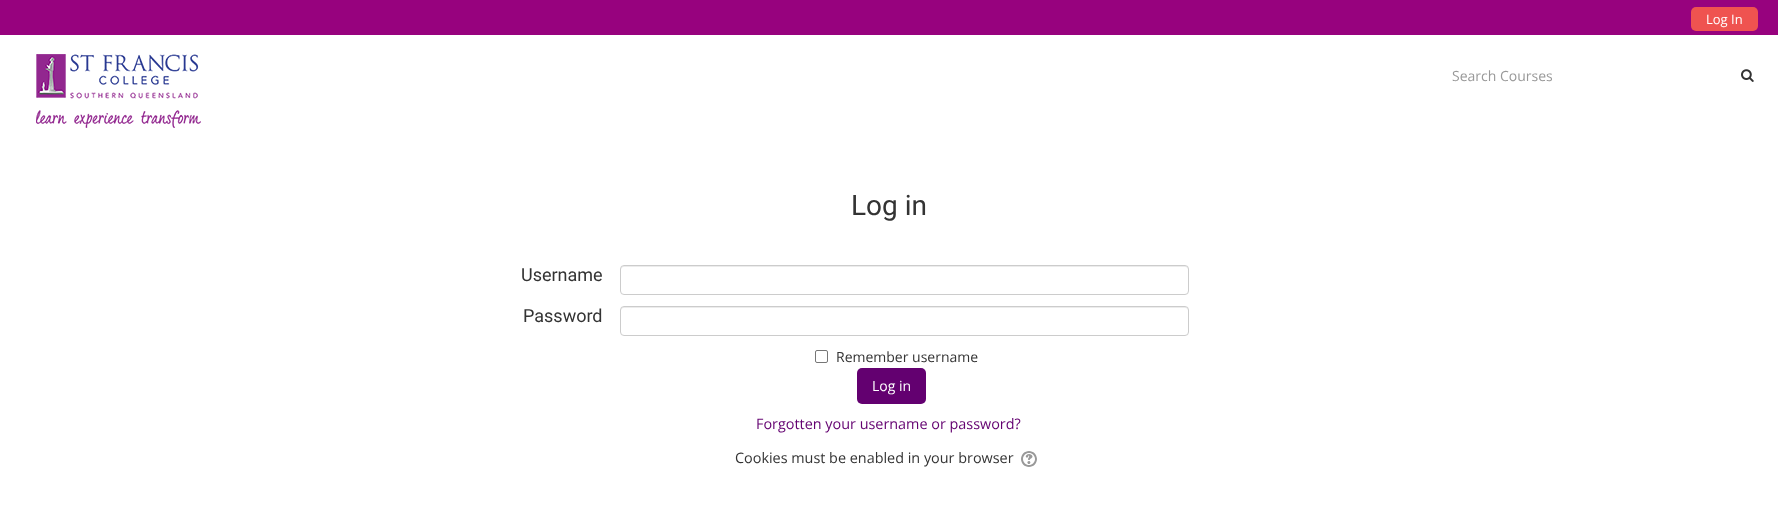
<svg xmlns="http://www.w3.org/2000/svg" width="1778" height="517">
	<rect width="100%" height="100%" fill="#FFFFFF" />
	<rect x="0" y="0" width="1778" height="35" fill="#97027E" />
	<rect x="1691" y="7" width="67" height="24" rx="5" fill="#EF5350" />
	<text x="1706" y="24" font-family="Open Sans" font-size="13" fill="#FFFFFF">Log In</text>
	<image x="36" y="54" width="165" height="74" href="assets/img1.png" />
	<text x="1452" y="81" font-family="Open Sans" font-size="14" fill="#999999">Search Courses</text>
	<image x="1741" y="69" width="13" height="13" href="assets/img2.png" />
	<text x="851" y="215" font-family="Roboto" font-size="28" fill="#333333">Log in</text>
	<text x="521" y="281" font-family="Roboto" font-size="18" fill="#333333">Username</text>
	<path d="M624 267H1185C1187 267 1188 268 1188 270V269C1188 267 1187 266 1185 266H624C622 266 621 267 621 269V270C621 268 622 267 624 267Z" fill="#ECECEC" />
	<rect x="620.5" y="265.5" width="568" height="29" rx="3.5" fill="none" stroke="#CCCCCC" />
	<text x="523" y="322" font-family="Roboto" font-size="18" fill="#333333">Password</text>
	<path d="M624 308H1185C1187 308 1188 309 1188 311V310C1188 308 1187 307 1185 307H624C622 307 621 308 621 310V311C621 309 622 308 624 308Z" fill="#ECECEC" />
	<rect x="620.5" y="306.5" width="568" height="29" rx="3.5" fill="none" stroke="#CCCCCC" />
	<rect x="815.5" y="350.5" width="12" height="12" rx="1.5" fill="none" stroke="#767676" />
	<text x="836" y="362" font-family="Open Sans" font-size="14" fill="#333333">Remember username</text>
	<rect x="857" y="368" width="69" height="36" rx="5" fill="#630070" />
	<text x="872" y="391" font-family="Open Sans" font-size="14" fill="#FFFFFF">Log in</text>
	<text x="756" y="429" font-family="Open Sans" font-size="14.4" fill="#630070">Forgotten your username or password?</text>
	<text x="735" y="463" font-family="Open Sans" font-size="14.4" fill="#333333">Cookies must be enabled in your browser</text>
	<image x="1021" y="451" width="16" height="16" href="assets/img3.png" />
</svg>
